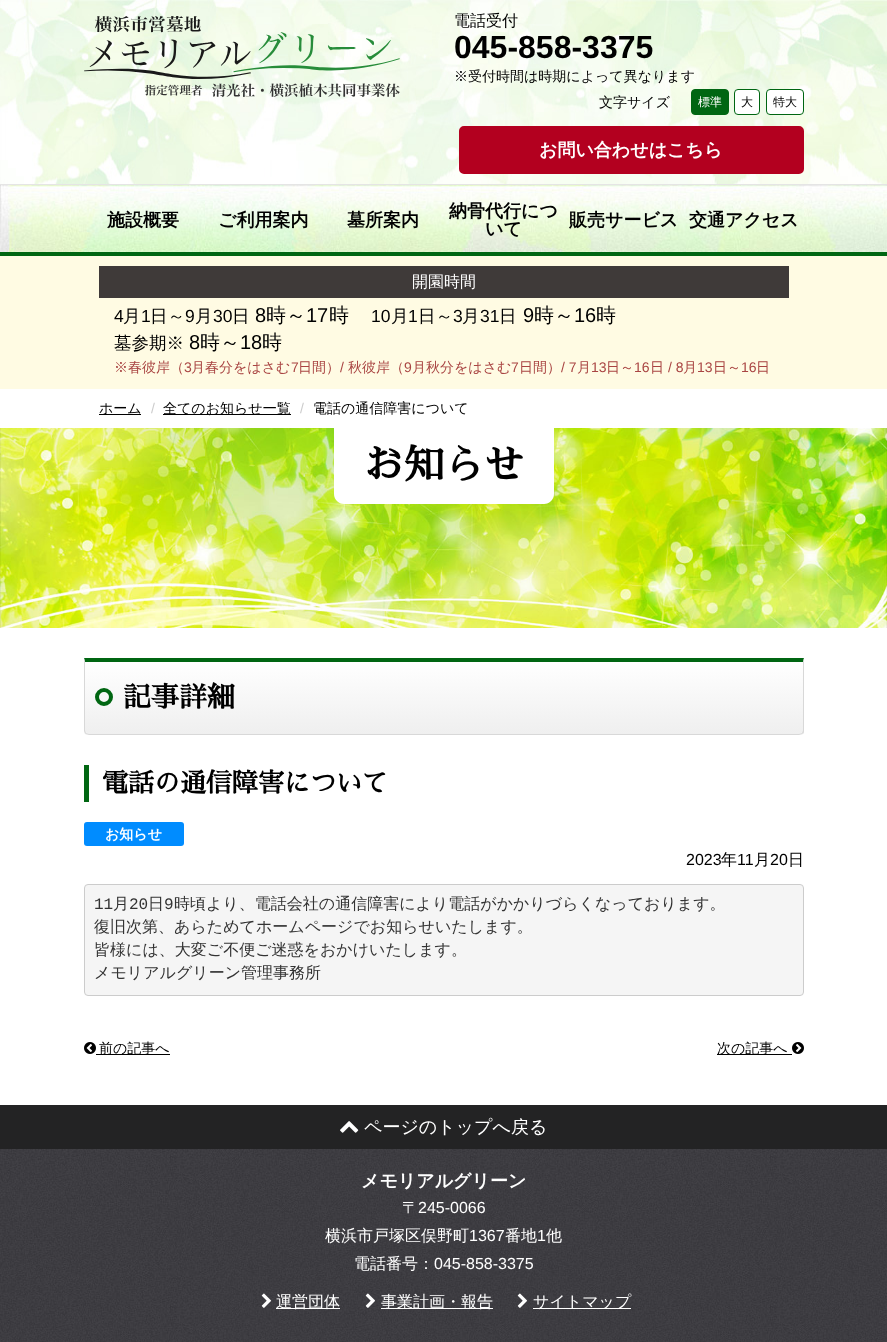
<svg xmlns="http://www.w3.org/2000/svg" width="887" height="1342">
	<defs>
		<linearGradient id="g1" gradientUnits="userSpaceOnUse" x1="444" y1="662" x2="444" y2="734"><stop offset="0" stop-color="#FFFFFF" /><stop offset="1" stop-color="#EFEFEF" /></linearGradient>
	</defs>
	<rect width="100%" height="100%" fill="#FFFFFF" />
	<image x="0" y="0" width="887" height="184" href="assets/img1.png" />
	<rect x="0" y="252" width="887" height="4" fill="#006612" />
	<image x="84" y="16" width="316" height="81" href="assets/img2.png" />
	<text x="454" y="26" font-family="WenQuanYi Zen Hei" font-size="16" font-weight="500" fill="#000000">電話受付</text>
	<text x="454" y="58" font-family="Liberation Sans" font-size="32" font-weight="700" fill="#000000">045-858-3375</text>
	<g font-family="WenQuanYi Zen Hei" font-size="14" font-weight="500" fill="#000000">
		<text x="454" y="81">※受付時間は時期によって異なります</text>
		<text x="599" y="107">文字サイズ</text>
	</g>
	<rect x="691.5" y="89.5" width="37" height="25" rx="3.5" fill="#006612" stroke="#006612" />
	<text x="698" y="106" font-family="WenQuanYi Zen Hei" font-size="12" font-weight="500" fill="#FFFFFF">標準</text>
	<rect x="734.5" y="89.5" width="25" height="25" rx="3.5" fill="#FFFFFF" stroke="#006612" />
	<text x="741" y="106" font-family="WenQuanYi Zen Hei" font-size="12" font-weight="500" fill="#000000">大</text>
	<rect x="766.5" y="89.5" width="37" height="25" rx="3.5" fill="#FFFFFF" stroke="#006612" />
	<text x="773" y="106" font-family="WenQuanYi Zen Hei" font-size="12" font-weight="500" fill="#000000">特大</text>
	<rect x="460" y="127" width="343" height="46" rx="4" fill="#B3001F" stroke="#B3001F" stroke-width="2" />
	<text x="539" y="156" font-family="WenQuanYi Zen Hei" font-size="18" font-weight="700" fill="#FFFFFF">お問い合わせはこちら</text>
	<image x="0" y="185" width="887" height="67" href="assets/img3.png" />
	<rect x="0" y="184" width="887" height="1" fill="#E5E5E5" />
	<g font-family="WenQuanYi Zen Hei" font-size="18" font-weight="700" fill="#000000">
		<text x="107" y="226">施設概要</text>
		<text x="218" y="226">ご利用案内</text>
		<text x="347" y="226">墓所案内</text>
		<text x="449" y="217">納骨代行につ</text>
		<text x="485" y="235">いて</text>
		<text x="569" y="226">販売サービス</text>
		<text x="689" y="226">交通アクセス</text>
	</g>
	<rect x="0" y="256" width="887" height="133" fill="#FFFBE3" />
	<rect x="99" y="266" width="690" height="32" fill="#3F3A39" />
	<text x="412" y="287" font-family="WenQuanYi Zen Hei" font-size="16" font-weight="500" fill="#FFFFFF">開園時間</text>
	<text x="114" y="322" font-family="Liberation Sans" font-size="17.5" fill="#000000">4</text>
	<text x="123" y="322" font-family="WenQuanYi Zen Hei" font-size="17.5" font-weight="500" fill="#000000">月</text>
	<text x="141" y="322" font-family="Liberation Sans" font-size="17.5" fill="#000000">1</text>
	<text x="150" y="322" font-family="WenQuanYi Zen Hei" font-size="17.5" font-weight="500" fill="#000000">日～</text>
	<text x="185" y="322" font-family="Liberation Sans" font-size="17.5" fill="#000000">9</text>
	<text x="195" y="322" font-family="WenQuanYi Zen Hei" font-size="17.5" font-weight="500" fill="#000000">月</text>
	<text x="213" y="322" font-family="Liberation Sans" font-size="17.5" fill="#000000">30</text>
	<text x="232" y="322" font-family="WenQuanYi Zen Hei" font-size="17.5" font-weight="500" fill="#000000">日</text>
	<text x="255" y="322" font-family="Liberation Sans" font-size="20" fill="#000000">8</text>
	<text x="266" y="322" font-family="WenQuanYi Zen Hei" font-size="20" font-weight="500" fill="#000000">時～</text>
	<text x="306" y="322" font-family="Liberation Sans" font-size="20" fill="#000000">17</text>
	<text x="329" y="322" font-family="WenQuanYi Zen Hei" font-size="20" font-weight="500" fill="#000000">時</text>
	<text x="371" y="322" font-family="Liberation Sans" font-size="17.5" fill="#000000">10</text>
	<text x="391" y="322" font-family="WenQuanYi Zen Hei" font-size="17.5" font-weight="500" fill="#000000">月</text>
	<text x="408" y="322" font-family="Liberation Sans" font-size="17.5" fill="#000000">1</text>
	<text x="418" y="322" font-family="WenQuanYi Zen Hei" font-size="17.5" font-weight="500" fill="#000000">日～</text>
	<text x="453" y="322" font-family="Liberation Sans" font-size="17.5" fill="#000000">3</text>
	<text x="462" y="322" font-family="WenQuanYi Zen Hei" font-size="17.5" font-weight="500" fill="#000000">月</text>
	<text x="480" y="322" font-family="Liberation Sans" font-size="17.5" fill="#000000">31</text>
	<text x="499" y="322" font-family="WenQuanYi Zen Hei" font-size="17.5" font-weight="500" fill="#000000">日</text>
	<text x="523" y="322" font-family="Liberation Sans" font-size="20" fill="#000000">9</text>
	<text x="534" y="322" font-family="WenQuanYi Zen Hei" font-size="20" font-weight="500" fill="#000000">時～</text>
	<text x="574" y="322" font-family="Liberation Sans" font-size="20" fill="#000000">16</text>
	<text x="596" y="322" font-family="WenQuanYi Zen Hei" font-size="20" font-weight="500" fill="#000000">時</text>
	<text x="114" y="349" font-family="WenQuanYi Zen Hei" font-size="17.5" font-weight="500" fill="#000000">墓参期※</text>
	<text x="189" y="349" font-family="Liberation Sans" font-size="20" fill="#000000">8</text>
	<text x="200" y="349" font-family="WenQuanYi Zen Hei" font-size="20" font-weight="500" fill="#000000">時～</text>
	<text x="240" y="349" font-family="Liberation Sans" font-size="20" fill="#000000">18</text>
	<text x="262" y="349" font-family="WenQuanYi Zen Hei" font-size="20" font-weight="500" fill="#000000">時</text>
	<text x="114" y="372" font-family="WenQuanYi Zen Hei" font-size="14" font-weight="500" fill="#A94442">※春彼岸（</text>
	<text x="184" y="372" font-family="Liberation Sans" font-size="14" fill="#A94442">3</text>
	<text x="191" y="372" font-family="WenQuanYi Zen Hei" font-size="14" font-weight="500" fill="#A94442">月春分をはさむ</text>
	<text x="291" y="372" font-family="Liberation Sans" font-size="14" fill="#A94442">7</text>
	<text x="298" y="372" font-family="WenQuanYi Zen Hei" font-size="14" font-weight="500" fill="#A94442">日間）</text>
	<text x="340" y="372" font-family="Liberation Sans" font-size="14" fill="#A94442">/</text>
	<text x="348" y="372" font-family="WenQuanYi Zen Hei" font-size="14" font-weight="500" fill="#A94442">秋彼岸（</text>
	<text x="404" y="372" font-family="Liberation Sans" font-size="14" fill="#A94442">9</text>
	<text x="412" y="372" font-family="WenQuanYi Zen Hei" font-size="14" font-weight="500" fill="#A94442">月秋分をはさむ</text>
	<text x="511" y="372" font-family="Liberation Sans" font-size="14" fill="#A94442">7</text>
	<text x="519" y="372" font-family="WenQuanYi Zen Hei" font-size="14" font-weight="500" fill="#A94442">日間）</text>
	<text x="561" y="372" font-family="Liberation Sans" font-size="14" fill="#A94442">/ 7</text>
	<text x="577" y="372" font-family="WenQuanYi Zen Hei" font-size="14" font-weight="500" fill="#A94442">月</text>
	<text x="591" y="372" font-family="Liberation Sans" font-size="14" fill="#A94442">13</text>
	<text x="606" y="372" font-family="WenQuanYi Zen Hei" font-size="14" font-weight="500" fill="#A94442">日～</text>
	<text x="634" y="372" font-family="Liberation Sans" font-size="14" fill="#A94442">16</text>
	<text x="650" y="372" font-family="WenQuanYi Zen Hei" font-size="14" font-weight="500" fill="#A94442">日</text>
	<text x="668" y="372" font-family="Liberation Sans" font-size="14" fill="#A94442">/ 8</text>
	<text x="683" y="372" font-family="WenQuanYi Zen Hei" font-size="14" font-weight="500" fill="#A94442">月</text>
	<text x="697" y="372" font-family="Liberation Sans" font-size="14" fill="#A94442">13</text>
	<text x="713" y="372" font-family="WenQuanYi Zen Hei" font-size="14" font-weight="500" fill="#A94442">日～</text>
	<text x="741" y="372" font-family="Liberation Sans" font-size="14" fill="#A94442">16</text>
	<text x="756" y="372" font-family="WenQuanYi Zen Hei" font-size="14" font-weight="500" fill="#A94442">日</text>
	<rect x="99" y="414" width="42" height="1" fill="#000000" />
	<text x="99" y="413" font-family="WenQuanYi Zen Hei" font-size="14" font-weight="500" fill="#000000">ホーム</text>
	<text x="151" y="413" font-family="Liberation Sans" font-size="14" fill="#CCCCCC">/</text>
	<rect x="163" y="414" width="128" height="1" fill="#000000" />
	<text x="163" y="413" font-family="WenQuanYi Zen Hei" font-size="14" font-weight="500" fill="#000000">全てのお知らせ一覧</text>
	<text x="300" y="413" font-family="Liberation Sans" font-size="14" fill="#CCCCCC">/</text>
	<text x="313" y="413" font-family="WenQuanYi Zen Hei" font-size="14" font-weight="500" fill="#000000">電話の通信障害について</text>
	<image x="0" y="428" width="887" height="200" href="assets/img4.png" />
	<path d="M334 428H554V494C554 499.5 549.5 504 544 504H344C338.5 504 334 499.5 334 494Z" fill="#FFFFFF" />
	<text x="364" y="479" font-family="Sawarabi Mincho" font-size="40" font-weight="700" fill="#000000">お知らせ</text>
	<path d="M85 662H803V730C803 732 801 734 799 734H89C87 734 85 732 85 730Z" fill="url(#g1)" />
	<path d="M84 658L85 662H803L804 658Z" fill="#006612" />
	<path d="M804 658L803 662V730C803 731 802 732 802 733L803 734C804 733 804 732 804 730Z" fill="#D8D8D8" />
	<path d="M89 735H799C800 735 802 734 803 734L802 733L799 734H89L86 733L85 734C86 734 88 735 89 735Z" fill="#D8D8D8" />
	<path d="M85 662L84 658V731L85 734L86 733L85 730Z" fill="#D8D8D8" />
	<circle cx="104" cy="697" r="7" fill="none" stroke="#006612" stroke-width="4" />
	<text x="123" y="707" font-family="Sawarabi Mincho" font-size="28" font-weight="700" fill="#000000">記事詳細</text>
	<rect x="84" y="765" width="5" height="37" fill="#006612" />
	<text x="102" y="792" font-family="Sawarabi Mincho" font-size="26" font-weight="700" fill="#000000">電話の通信障害について</text>
	<rect x="84" y="822" width="100" height="24" rx="3" fill="#008CFF" />
	<text x="105" y="839" font-family="WenQuanYi Zen Hei" font-size="14" font-weight="700" fill="#FFFFFF">お知らせ</text>
	<text x="686" y="865" font-family="Liberation Sans" font-size="16" fill="#000000">2023</text>
	<text x="721" y="865" font-family="WenQuanYi Zen Hei" font-size="16" font-weight="500" fill="#000000">年</text>
	<text x="737" y="865" font-family="Liberation Sans" font-size="16" fill="#000000">11</text>
	<text x="754" y="865" font-family="WenQuanYi Zen Hei" font-size="16" font-weight="500" fill="#000000">月</text>
	<text x="770" y="865" font-family="Liberation Sans" font-size="16" fill="#000000">20</text>
	<text x="788" y="865" font-family="WenQuanYi Zen Hei" font-size="16" font-weight="500" fill="#000000">日</text>
	<rect x="84.5" y="884.5" width="719" height="111" rx="3.5" fill="#F5F5F5" stroke="#CCCCCC" />
	<text x="94" y="909" font-family="Liberation Mono" font-size="16" fill="#333333">11</text>
	<text x="113" y="909" font-family="WenQuanYi Zen Hei" font-size="16" font-weight="500" fill="#333333">月</text>
	<text x="129" y="909" font-family="Liberation Mono" font-size="16" fill="#333333">20</text>
	<text x="148" y="909" font-family="WenQuanYi Zen Hei" font-size="16" font-weight="500" fill="#333333">日</text>
	<text x="164" y="909" font-family="Liberation Mono" font-size="16" fill="#333333">9</text>
	<g font-family="WenQuanYi Zen Hei" font-size="16" font-weight="500" fill="#333333">
		<text x="174" y="909">時頃より、電話会社の通信障害により電話がかかりづらくなっております。</text>
		<text x="94" y="932">復旧次第、あらためてホームページでお知らせいたします。</text>
		<text x="94" y="955">皆様には、大変ご不便ご迷惑をおかけいたします。</text>
		<text x="94" y="978">メモリアルグリーン管理事務所</text>
	</g>
	<image x="84" y="1042" width="12" height="12" href="assets/img5.png" />
	<rect x="96" y="1054" width="74" height="1" fill="#000000" />
	<text x="99" y="1053" font-family="WenQuanYi Zen Hei" font-size="14" font-weight="500" fill="#000000">前の記事へ</text>
	<rect x="717" y="1054" width="75" height="1" fill="#000000" />
	<text x="717" y="1053" font-family="WenQuanYi Zen Hei" font-size="14" font-weight="500" fill="#000000">次の記事へ</text>
	<image x="792" y="1042" width="12" height="12" href="assets/img6.png" />
	<rect x="0" y="1105" width="887" height="44" fill="#232324" />
	<image x="340" y="1121" width="19" height="12" href="assets/img7.png" />
	<text x="364" y="1133" font-family="WenQuanYi Zen Hei" font-size="18" font-weight="500" fill="#FFFFFF">ページのトップへ戻る</text>
	<image x="0" y="1149" width="887" height="193" href="assets/img8.png" />
	<text x="361" y="1187" font-family="WenQuanYi Zen Hei" font-size="18" font-weight="700" fill="#FFFFFF">メモリアルグリーン</text>
	<text x="402" y="1213" font-family="WenQuanYi Zen Hei" font-size="16" font-weight="500" fill="#FFFFFF">〒</text>
	<text x="418" y="1213" font-family="Liberation Sans" font-size="16" fill="#FFFFFF">245-0066</text>
	<text x="325" y="1241" font-family="WenQuanYi Zen Hei" font-size="16" font-weight="500" fill="#FFFFFF">横浜市戸塚区俣野町</text>
	<text x="469" y="1241" font-family="Liberation Sans" font-size="16" fill="#FFFFFF">1367</text>
	<text x="505" y="1241" font-family="WenQuanYi Zen Hei" font-size="16" font-weight="500" fill="#FFFFFF">番地</text>
	<text x="537" y="1241" font-family="Liberation Sans" font-size="16" fill="#FFFFFF">1</text>
	<g font-family="WenQuanYi Zen Hei" font-size="16" font-weight="500" fill="#FFFFFF">
		<text x="546" y="1241">他</text>
		<text x="354" y="1269">電話番号：</text>
	</g>
	<text x="434" y="1269" font-family="Liberation Sans" font-size="16" fill="#FFFFFF">045-858-3375</text>
	<image x="261" y="1293" width="10" height="15" href="assets/img9.png" />
	<rect x="276" y="1308" width="64" height="1" fill="#FFFFFF" />
	<text x="276" y="1307" font-family="WenQuanYi Zen Hei" font-size="16" font-weight="500" fill="#FFFFFF">運営団体</text>
	<image x="365" y="1293" width="10" height="15" href="assets/img10.png" />
	<rect x="381" y="1308" width="112" height="1" fill="#FFFFFF" />
	<text x="381" y="1307" font-family="WenQuanYi Zen Hei" font-size="16" font-weight="500" fill="#FFFFFF">事業計画・報告</text>
	<image x="517" y="1293" width="10" height="15" href="assets/img11.png" />
	<rect x="533" y="1308" width="98" height="1" fill="#FFFFFF" />
	<text x="533" y="1307" font-family="WenQuanYi Zen Hei" font-size="16" font-weight="500" fill="#FFFFFF">サイトマップ</text>
</svg>
